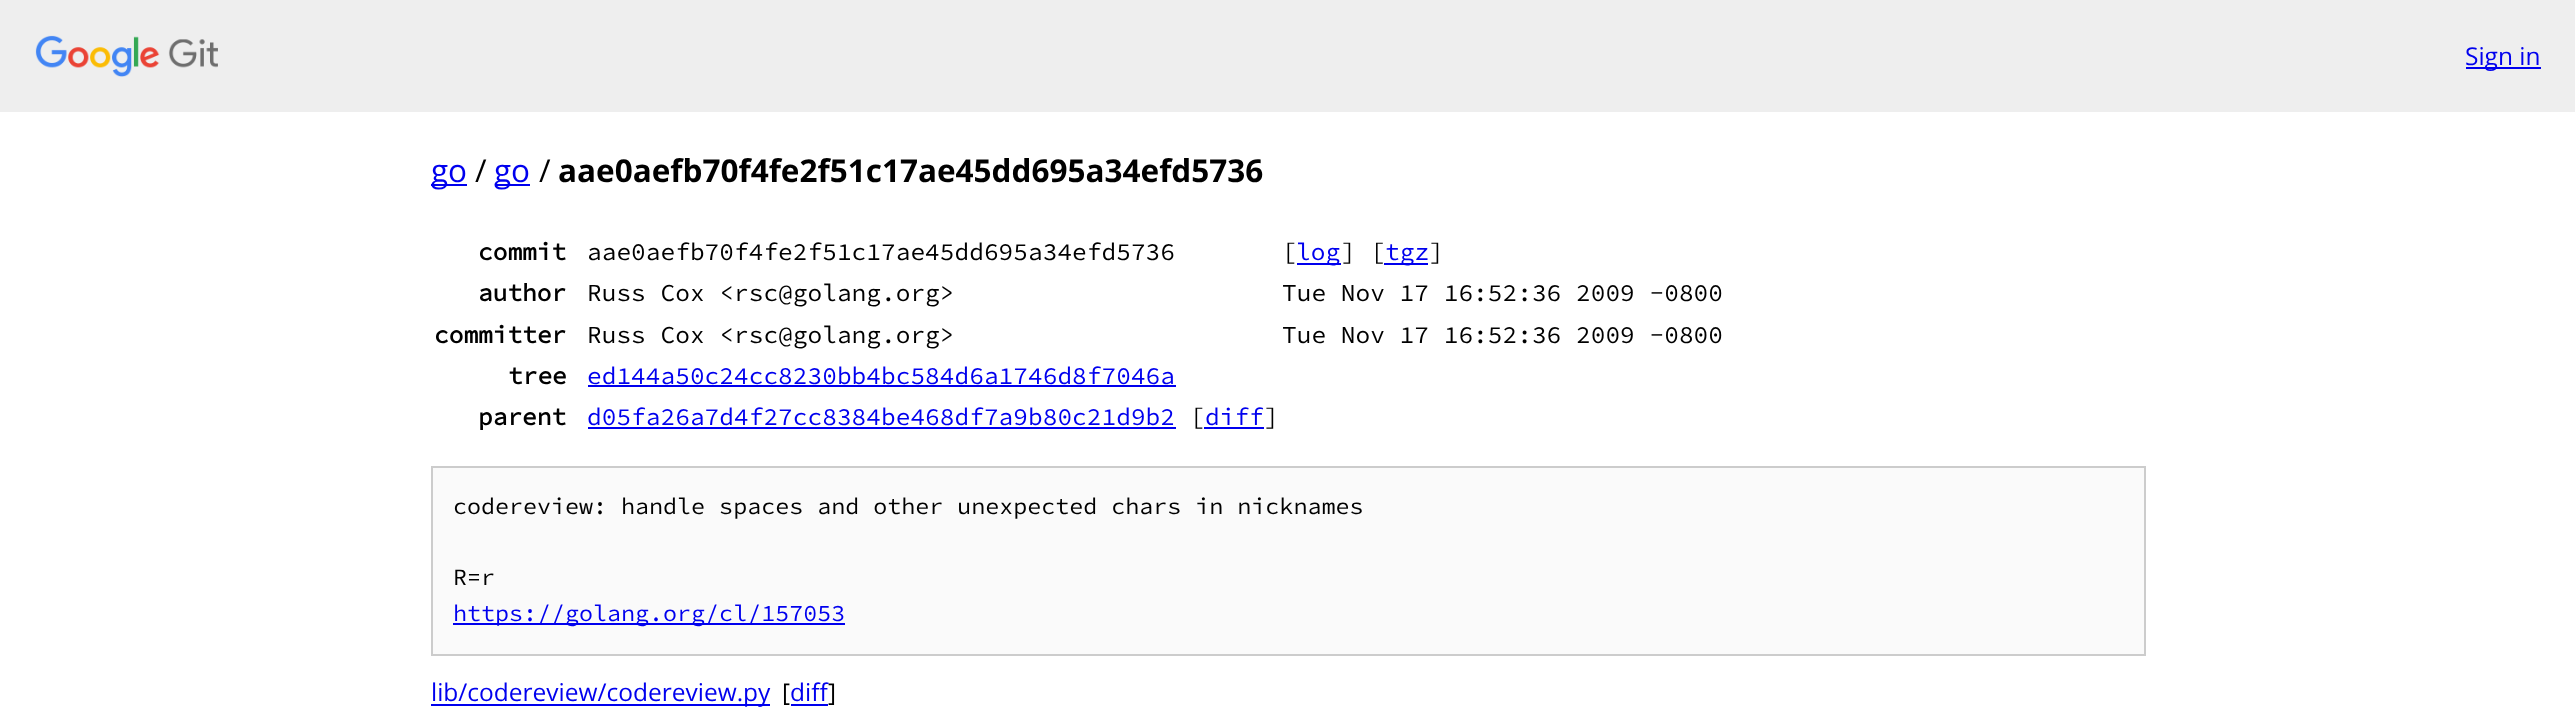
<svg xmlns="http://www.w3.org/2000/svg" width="2575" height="713">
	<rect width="100%" height="100%" fill="#FFFFFF" />
	<rect x="0" y="0" width="2575" height="112" fill="#EEEEEE" />
	<image x="35" y="35" width="183" height="42" href="assets/img1.png" />
	<rect x="2466" y="67" width="75" height="2" fill="#0000EE" />
	<text x="2465" y="65" font-family="Open Sans" font-size="24.5" fill="#0000EE">Sign in</text>
	<rect x="431" y="184" width="36" height="2" fill="#0000EE" />
	<text x="431" y="182" font-family="Open Sans" font-size="31.5" fill="#0000EE">go</text>
	<text x="475" y="182" font-family="Open Sans" font-size="31.5" fill="#000000">/</text>
	<rect x="495" y="184" width="35" height="2" fill="#0000EE" />
	<text x="494" y="182" font-family="Open Sans" font-size="31.5" fill="#0000EE">go</text>
	<text x="539" y="182" font-family="Open Sans" font-size="31.5" fill="#000000">/</text>
	<text x="558" y="182" font-family="Open Sans" font-size="31.5" font-weight="700" fill="#000000">aae0aefb70f4fe2f51c17ae45dd695a34efd5736</text>
	<text x="478" y="260" font-family="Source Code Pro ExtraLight" font-size="24.5" font-weight="700" fill="#000000">commit</text>
	<g font-family="Source Code Pro ExtraLight" font-size="24.5" font-weight="200" fill="#000000">
		<text x="587" y="260">aae0aefb70f4fe2f51c17ae45dd695a34efd5736</text>
		<text x="1282" y="260">[</text>
	</g>
	<rect x="1297" y="263" width="44" height="2" fill="#0000EE" />
	<text x="1296" y="260" font-family="Source Code Pro ExtraLight" font-size="24.5" font-weight="200" fill="#0000EE">log</text>
	<text x="1341" y="260" font-family="Source Code Pro ExtraLight" font-size="24.5" font-weight="200" fill="#000000">] [</text>
	<rect x="1384" y="263" width="44" height="2" fill="#0000EE" />
	<text x="1385" y="260" font-family="Source Code Pro ExtraLight" font-size="24.5" font-weight="200" fill="#0000EE">tgz</text>
	<text x="1429" y="260" font-family="Source Code Pro ExtraLight" font-size="24.5" font-weight="200" fill="#000000">]</text>
	<text x="478" y="301" font-family="Source Code Pro ExtraLight" font-size="24.5" font-weight="700" fill="#000000">author</text>
	<g font-family="Source Code Pro ExtraLight" font-size="24.5" font-weight="200" fill="#000000">
		<text x="587" y="301">Russ Cox &lt;rsc@golang.org&gt;</text>
		<text x="1282" y="301">Tue Nov 17 16:52:36 2009 -0800</text>
	</g>
	<text x="434" y="343" font-family="Source Code Pro ExtraLight" font-size="24.5" font-weight="700" fill="#000000">committer</text>
	<g font-family="Source Code Pro ExtraLight" font-size="24.5" font-weight="200" fill="#000000">
		<text x="587" y="343">Russ Cox &lt;rsc@golang.org&gt;</text>
		<text x="1282" y="343">Tue Nov 17 16:52:36 2009 -0800</text>
	</g>
	<text x="508" y="384" font-family="Source Code Pro ExtraLight" font-size="24.5" font-weight="700" fill="#000000">tree</text>
	<text x="587" y="384" font-family="Source Code Pro ExtraLight" font-size="24.5" font-weight="200" fill="#0000EE">ed144a50c24cc8230bb4bc584d6a1746d8f7046a</text>
	<rect x="588" y="385" width="588" height="2" fill="#0000EE" />
	<text x="478" y="425" font-family="Source Code Pro ExtraLight" font-size="24.5" font-weight="700" fill="#000000">parent</text>
	<text x="587" y="425" font-family="Source Code Pro ExtraLight" font-size="24.5" font-weight="200" fill="#0000EE">d05fa26a7d4f27cc8384be468df7a9b80c21d9b2</text>
	<rect x="588" y="427" width="588" height="2" fill="#0000EE" />
	<text x="1190" y="425" font-family="Source Code Pro ExtraLight" font-size="24.5" font-weight="200" fill="#000000">[</text>
	<rect x="1204" y="427" width="60" height="2" fill="#0000EE" />
	<text x="1205" y="425" font-family="Source Code Pro ExtraLight" font-size="24.5" font-weight="200" fill="#0000EE">diff</text>
	<text x="1264" y="425" font-family="Source Code Pro ExtraLight" font-size="24.5" font-weight="200" fill="#000000">]</text>
	<rect x="432" y="467" width="1713" height="188" fill="#FAFAFA" stroke="#CCCCCC" stroke-width="2" />
	<g font-family="Source Code Pro ExtraLight" font-size="23.35" font-weight="200" fill="#000000">
		<text x="453" y="514">codereview: handle spaces and other unexpected chars in nicknames</text>
		<text x="453" y="585">R=r</text>
	</g>
	<rect x="453" y="623" width="392" height="2" fill="#0000EE" />
	<text x="453" y="621" font-family="Source Code Pro ExtraLight" font-size="23.35" font-weight="200" fill="#0000EE">https://golang.org/cl/157053</text>
	<rect x="431" y="704" width="339" height="2" fill="#0000EE" />
	<text x="431" y="701" font-family="Open Sans" font-size="24.5" fill="#0000EE">lib/codereview/codereview.py</text>
	<text x="782" y="701" font-family="Open Sans" font-size="24.5" fill="#000000">[</text>
	<text x="790" y="701" font-family="Open Sans" font-size="24.5" fill="#0000EE">diff</text>
	<text x="828" y="701" font-family="Open Sans" font-size="24.5" fill="#000000">]</text>
	<rect x="791" y="704" width="37" height="2" fill="#0000EE" />
</svg>
